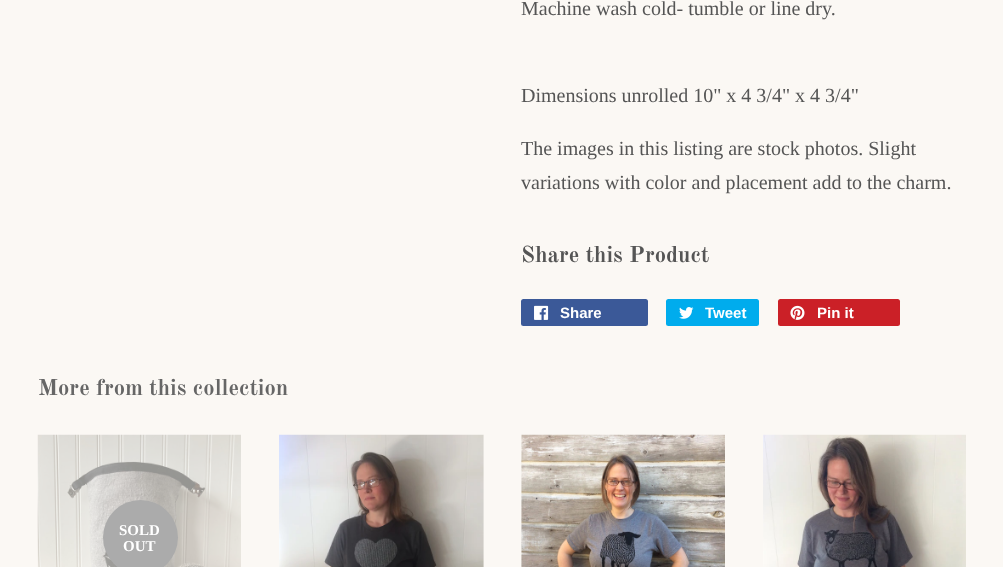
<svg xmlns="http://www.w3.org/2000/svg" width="1003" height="567">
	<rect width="100%" height="100%" fill="#FBF8F4" />
	<g font-family="Liberation Serif" font-size="20" fill="#555555">
		<text x="521" y="15">Machine wash cold- tumble or line dry.</text>
		<text x="521" y="102">Dimensions unrolled 10" x 4 3/4" x 4 3/4"</text>
		<text x="521" y="155">The images in this listing are stock photos. Slight</text>
		<text x="521" y="189">variations with color and placement add to the charm.</text>
	</g>
	<text x="521" y="262" font-family="Old Standard TT" font-size="22.5" font-weight="700" fill="#555555">Share this Product</text>
	<rect x="521" y="299" width="127" height="27" rx="2.5" fill="#3B5998" />
	<image x="534" y="305" width="15" height="15" href="assets/img1.png" />
	<text x="560" y="318" font-family="Liberation Sans" font-size="15" font-weight="700" fill="#FFFFFF">Share</text>
	<rect x="666" y="299" width="93" height="27" rx="2.5" fill="#00ACED" />
	<image x="679" y="307" width="15" height="12" href="assets/img2.png" />
	<text x="705" y="318" font-family="Liberation Sans" font-size="15" font-weight="700" fill="#FFFFFF">Tweet</text>
	<rect x="778" y="299" width="122" height="27" rx="2.5" fill="#CB2027" />
	<image x="790" y="305" width="15" height="15" href="assets/img3.png" />
	<text x="817" y="318" font-family="Liberation Sans" font-size="15" font-weight="700" fill="#FFFFFF">Pin it</text>
	<text x="38" y="395" font-family="Old Standard TT" font-size="22.5" font-weight="700" fill="#666666">More from this collection</text>
	<image x="37" y="434" width="204" height="133" href="assets/img4.png" />
	<circle cx="140.5" cy="537.5" r="37.5" fill="#ABABAB" />
	<g font-family="Liberation Serif" font-size="15" font-weight="700" fill="#FFFFFF">
		<text x="119" y="535">SOLD</text>
		<text x="123" y="551">OUT</text>
	</g>
	<image x="279" y="434" width="205" height="133" href="assets/img5.png" />
	<image x="521" y="434" width="204" height="133" href="assets/img6.png" />
	<image x="763" y="434" width="203" height="133" href="assets/img7.png" />
</svg>
